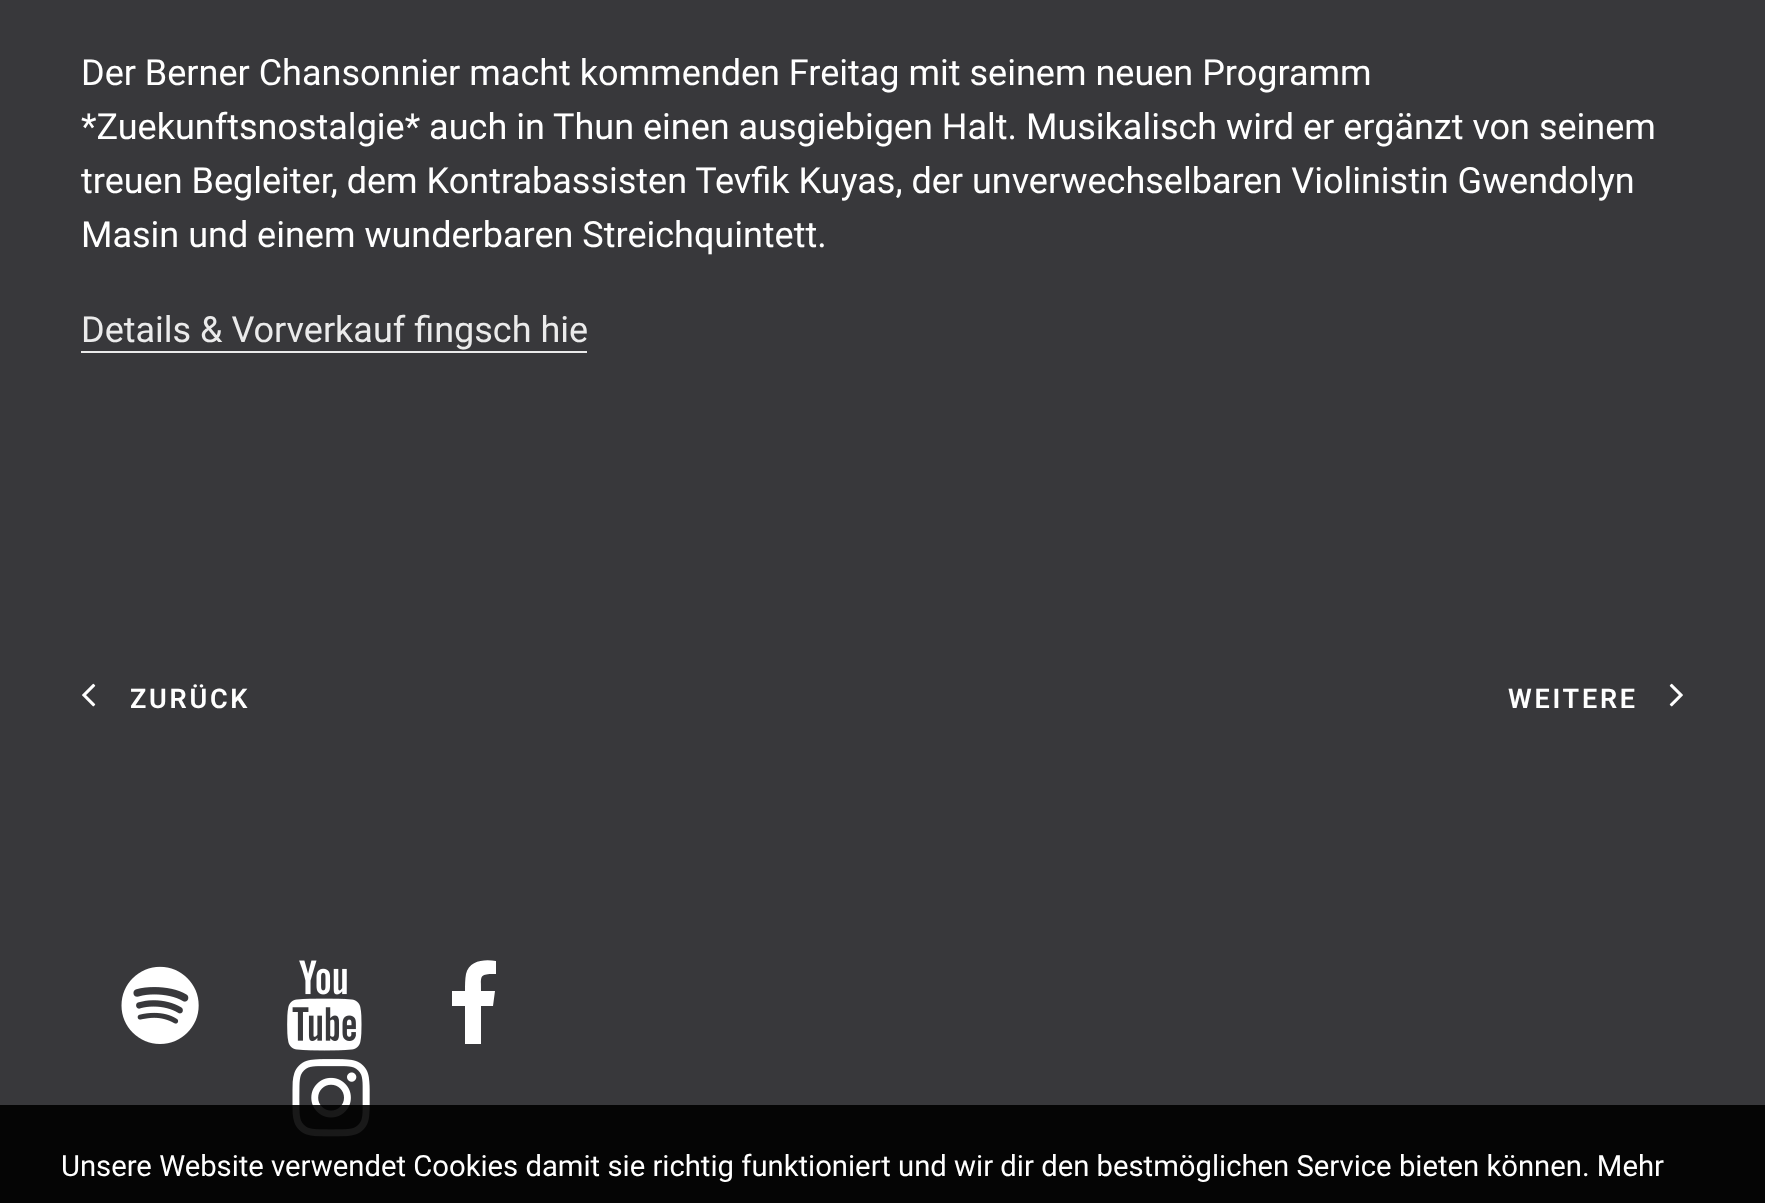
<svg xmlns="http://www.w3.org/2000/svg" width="1765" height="1203">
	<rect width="100%" height="100%" fill="#38383B" />
	<g font-family="Roboto" font-size="36" fill="#FFFFFF">
		<text x="81" y="85">Der Berner Chansonnier macht kommenden Freitag mit seinem neuen Programm</text>
		<text x="81" y="139">*Zuekunftsnostalgie* auch in Thun einen ausgiebigen Halt. Musikalisch wird er ergänzt von seinem</text>
		<text x="81" y="193">treuen Begleiter, dem Kontrabassisten Tevfik Kuyas, der unverwechselbaren Violinistin Gwendolyn</text>
		<text x="81" y="247">Masin und einem wunderbaren Streichquintett.</text>
	</g>
	<text x="81" y="342" font-family="Roboto" font-size="36" fill="#EBEBEB">Details &amp; Vorverkauf fingsch hie</text>
	<rect x="81" y="351" width="506" height="2" fill="#EBEBEB" />
	<image x="82" y="683" width="14" height="24" href="assets/img1.png" />
	<g font-family="Roboto" font-size="27" font-weight="600" letter-spacing="2.75" fill="#FFFFFF">
		<text x="130" y="708">ZURÜCK</text>
		<text x="1508" y="708">WEITERE</text>
	</g>
	<image x="1669" y="683" width="14" height="24" href="assets/img2.png" />
	<image x="121" y="966" width="78" height="78" href="assets/img3.png" />
	<image x="287" y="960" width="75" height="91" href="assets/img4.png" />
	<path d="M496 961V974C479 974 481 975 481 991H495L493 1006H481V1044H465V1006H452V991H465C465 985 465 979 466 974C469 960 485 959 496 961Z" fill="#FFFFFF" />
	<image x="292" y="1059" width="78" height="78" href="assets/img5.png" />
	<rect x="0" y="1105" width="1765" height="98" fill="#000000" fill-opacity="0.9" />
	<text x="61" y="1176" font-family="Roboto" font-size="29.25" fill="#FFFFFF">Unsere Website verwendet Cookies damit sie richtig funktioniert und wir dir den bestmöglichen Service bieten können. Mehr</text>
</svg>
